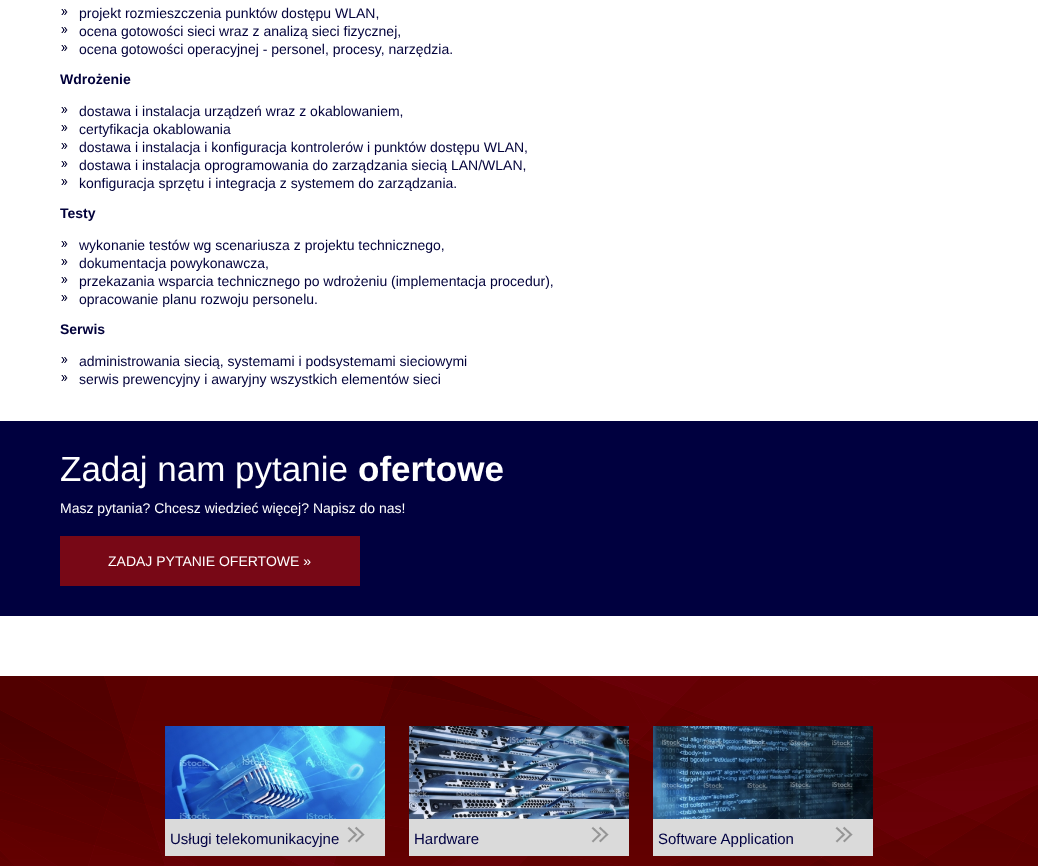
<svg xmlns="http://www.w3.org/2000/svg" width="1038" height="866">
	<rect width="100%" height="100%" fill="#FFFFFF" />
	<image x="61" y="9" width="7" height="6" href="assets/img1.png" />
	<text x="79" y="18" font-family="Liberation Sans" font-size="14" fill="#01003A">projekt rozmieszczenia punktów dostępu WLAN,</text>
	<image x="61" y="27" width="7" height="6" href="assets/img1.png" />
	<text x="79" y="36" font-family="Liberation Sans" font-size="14" fill="#01003A">ocena gotowości sieci wraz z analizą sieci fizycznej,</text>
	<image x="61" y="45" width="7" height="6" href="assets/img1.png" />
	<text x="79" y="54" font-family="Liberation Sans" font-size="14" fill="#01003A">ocena gotowości operacyjnej - personel, procesy, narzędzia.</text>
	<text x="60" y="84" font-family="Liberation Sans" font-size="14" font-weight="700" fill="#01003A">Wdrożenie</text>
	<image x="61" y="107" width="7" height="6" href="assets/img1.png" />
	<text x="79" y="116" font-family="Liberation Sans" font-size="14" fill="#01003A">dostawa i instalacja urządzeń wraz z okablowaniem,</text>
	<image x="61" y="125" width="7" height="6" href="assets/img1.png" />
	<text x="79" y="134" font-family="Liberation Sans" font-size="14" fill="#01003A">certyfikacja okablowania</text>
	<image x="61" y="143" width="7" height="6" href="assets/img1.png" />
	<text x="79" y="152" font-family="Liberation Sans" font-size="14" fill="#01003A">dostawa i instalacja i konfiguracja kontrolerów i punktów dostępu WLAN,</text>
	<image x="61" y="161" width="7" height="6" href="assets/img1.png" />
	<text x="79" y="170" font-family="Liberation Sans" font-size="14" fill="#01003A">dostawa i instalacja oprogramowania do zarządzania siecią LAN/WLAN,</text>
	<image x="61" y="179" width="7" height="6" href="assets/img1.png" />
	<text x="79" y="188" font-family="Liberation Sans" font-size="14" fill="#01003A">konfiguracja sprzętu i integracja z systemem do zarządzania.</text>
	<text x="60" y="218" font-family="Liberation Sans" font-size="14" font-weight="700" fill="#01003A">Testy</text>
	<image x="61" y="241" width="7" height="6" href="assets/img1.png" />
	<text x="79" y="250" font-family="Liberation Sans" font-size="14" fill="#01003A">wykonanie testów wg scenariusza z projektu technicznego,</text>
	<image x="61" y="259" width="7" height="6" href="assets/img1.png" />
	<text x="79" y="268" font-family="Liberation Sans" font-size="14" fill="#01003A">dokumentacja powykonawcza,</text>
	<image x="61" y="277" width="7" height="6" href="assets/img1.png" />
	<text x="79" y="286" font-family="Liberation Sans" font-size="14" fill="#01003A">przekazania wsparcia technicznego po wdrożeniu (implementacja procedur),</text>
	<image x="61" y="295" width="7" height="6" href="assets/img1.png" />
	<text x="79" y="304" font-family="Liberation Sans" font-size="14" fill="#01003A">opracowanie planu rozwoju personelu.</text>
	<text x="60" y="334" font-family="Liberation Sans" font-size="14" font-weight="700" fill="#01003A">Serwis</text>
	<image x="61" y="357" width="7" height="6" href="assets/img1.png" />
	<text x="79" y="366" font-family="Liberation Sans" font-size="14" fill="#01003A">administrowania siecią, systemami i podsystemami sieciowymi</text>
	<image x="61" y="375" width="7" height="6" href="assets/img1.png" />
	<text x="79" y="384" font-family="Liberation Sans" font-size="14" fill="#01003A">serwis prewencyjny i awaryjny wszystkich elementów sieci</text>
	<rect x="0" y="421" width="1038" height="195" fill="#00003F" />
	<text x="60" y="481" font-family="Liberation Sans" font-size="35" fill="#FFFFFF">Zadaj nam pytanie</text>
	<text x="358" y="481" font-family="Liberation Sans" font-size="35" font-weight="700" fill="#FFFFFF">ofertowe</text>
	<text x="60" y="513" font-family="Liberation Sans" font-size="14" fill="#FFFFFF">Masz pytania? Chcesz wiedzieć więcej? Napisz do nas!</text>
	<rect x="60" y="536" width="300" height="50" fill="#780816" />
	<text x="108" y="566" font-family="Liberation Sans" font-size="14" fill="#FFFFFF">ZADAJ PYTANIE OFERTOWE »</text>
	<image x="0" y="676" width="1038" height="190" href="assets/img2.png" />
	<rect x="165" y="819" width="220" height="37" fill="#DADADA" />
	<image x="165" y="726" width="220" height="93" href="assets/img3.png" />
	<text x="170" y="844" font-family="Liberation Sans" font-size="15" fill="#010042">Usługi telekomunikacyjne</text>
	<image x="347" y="826" width="18" height="17" href="assets/img4.png" />
	<rect x="409" y="819" width="220" height="37" fill="#DADADA" />
	<image x="409" y="726" width="220" height="93" href="assets/img5.png" />
	<text x="414" y="844" font-family="Liberation Sans" font-size="15" fill="#010042">Hardware</text>
	<image x="591" y="826" width="18" height="17" href="assets/img4.png" />
	<rect x="653" y="819" width="220" height="37" fill="#DADADA" />
	<image x="653" y="726" width="220" height="93" href="assets/img6.png" />
	<text x="658" y="844" font-family="Liberation Sans" font-size="15" fill="#010042">Software Application</text>
	<image x="835" y="826" width="18" height="17" href="assets/img4.png" />
</svg>
